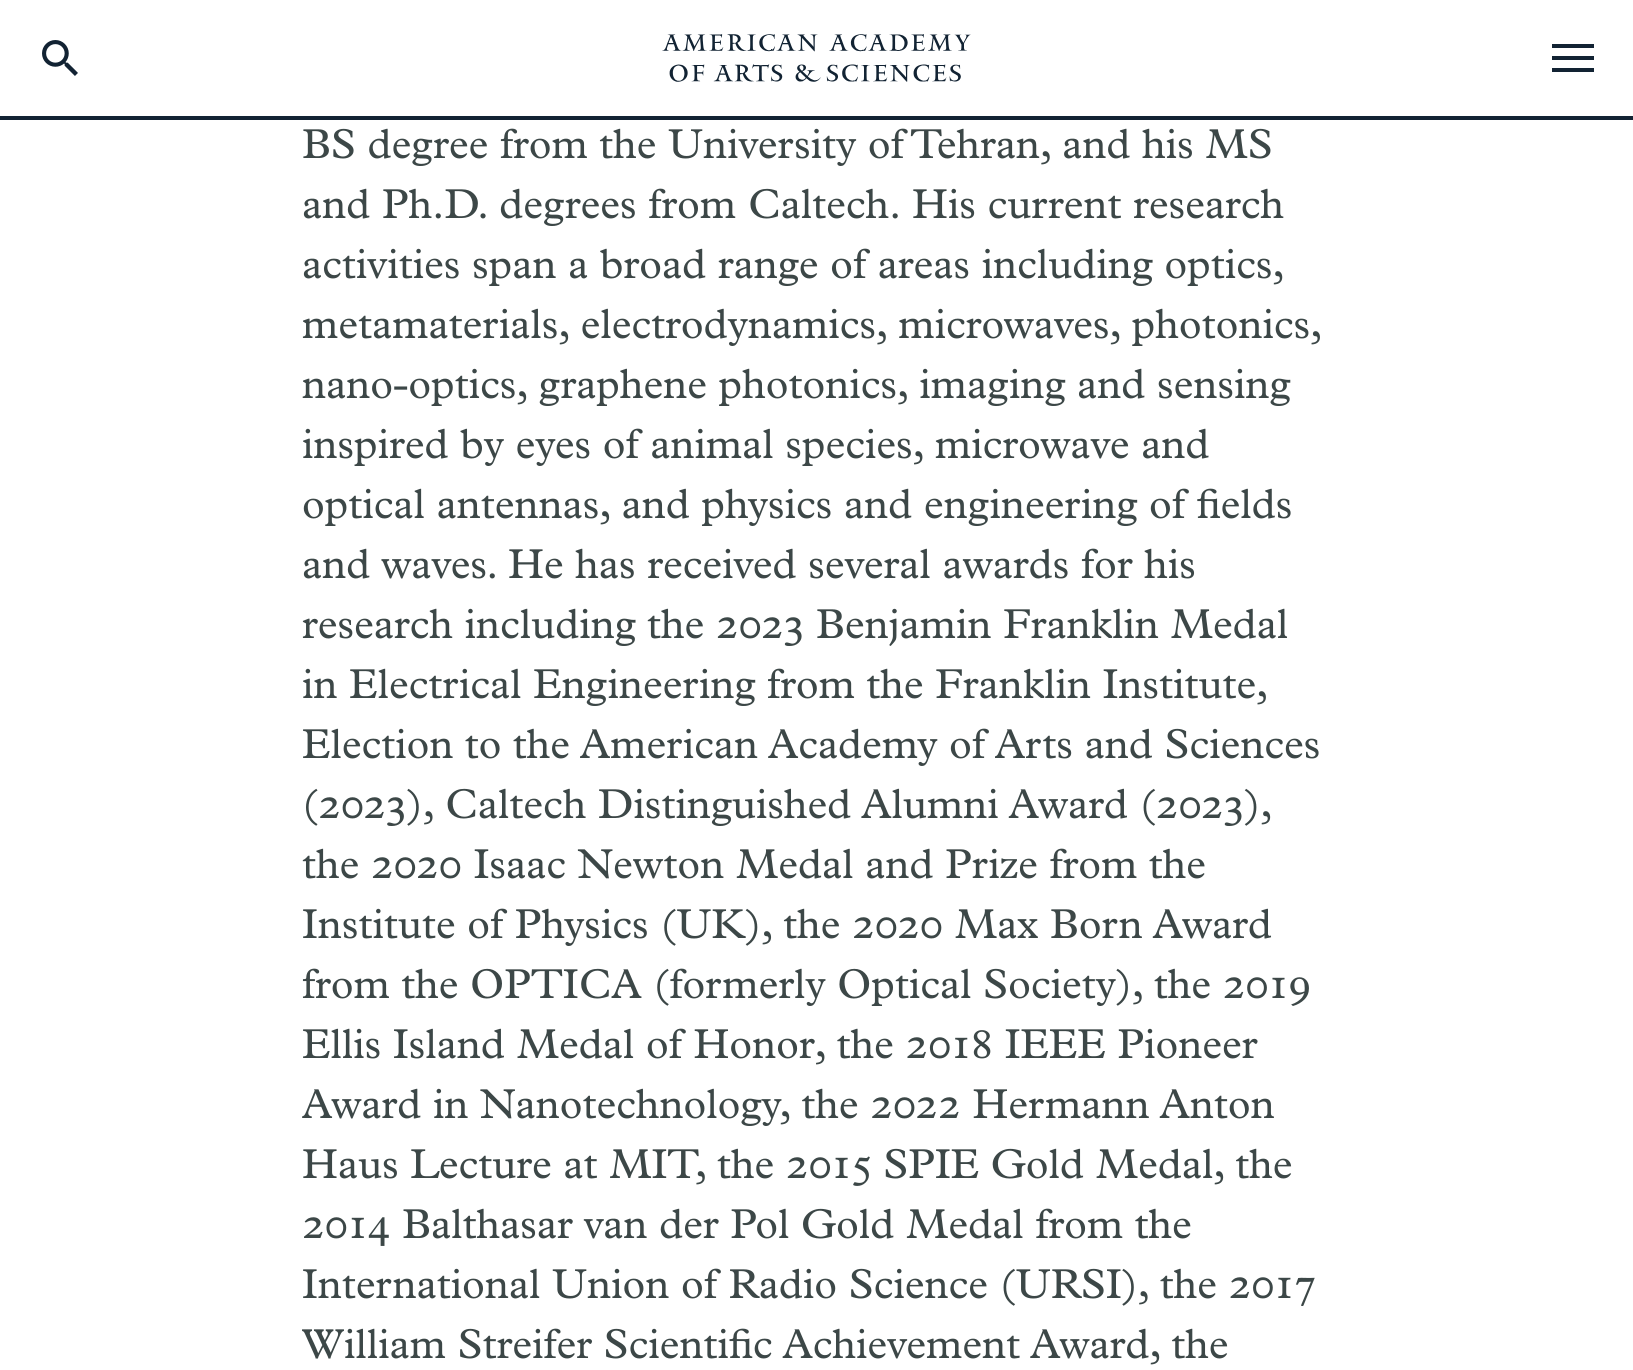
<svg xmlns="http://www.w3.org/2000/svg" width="1633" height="1370">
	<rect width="100%" height="100%" fill="#FFFFFF" />
	<rect x="0" y="116" width="1633" height="4" fill="#122333" />
	<image x="42" y="40" width="36" height="36" href="assets/img1.png" />
	<image x="662" y="34" width="309" height="48" href="assets/img2.png" />
	<path d="M1552 72H1594V68H1552ZM1552 60H1594V56H1552ZM1552 48H1594V44H1552Z" fill="#122333" fill-rule="evenodd" />
	<image x="303" y="128" width="968" height="38" href="assets/img3.png" />
	<image x="303" y="188" width="595" height="38" href="assets/img4.png" />
	<image x="913" y="188" width="371" height="31" href="assets/img5.png" />
	<image x="303" y="248" width="980" height="38" href="assets/img6.png" />
	<image x="302" y="308" width="1018" height="38" href="assets/img7.png" />
	<image x="302" y="368" width="989" height="38" href="assets/img8.png" />
	<image x="303" y="428" width="906" height="38" href="assets/img9.png" />
	<image x="303" y="488" width="988" height="38" href="assets/img10.png" />
	<image x="303" y="548" width="192" height="31" href="assets/img11.png" />
	<image x="509" y="548" width="686" height="31" href="assets/img12.png" />
	<image x="302" y="608" width="986" height="38" href="assets/img13.png" />
	<image x="303" y="668" width="963" height="38" href="assets/img14.png" />
	<image x="303" y="728" width="1016" height="38" href="assets/img15.png" />
	<image x="306" y="788" width="965" height="38" href="assets/img16.png" />
	<image x="302" y="848" width="903" height="31" href="assets/img17.png" />
	<image x="303" y="908" width="969" height="38" href="assets/img18.png" />
	<image x="302" y="968" width="1007" height="38" href="assets/img19.png" />
	<image x="303" y="1028" width="955" height="37" href="assets/img20.png" />
	<image x="302" y="1088" width="972" height="38" href="assets/img21.png" />
	<image x="303" y="1148" width="989" height="38" href="assets/img22.png" />
	<image x="304" y="1208" width="887" height="38" href="assets/img23.png" />
	<image x="303" y="1268" width="1012" height="38" href="assets/img24.png" />
	<image x="302" y="1328" width="926" height="37" href="assets/img25.png" />
</svg>
